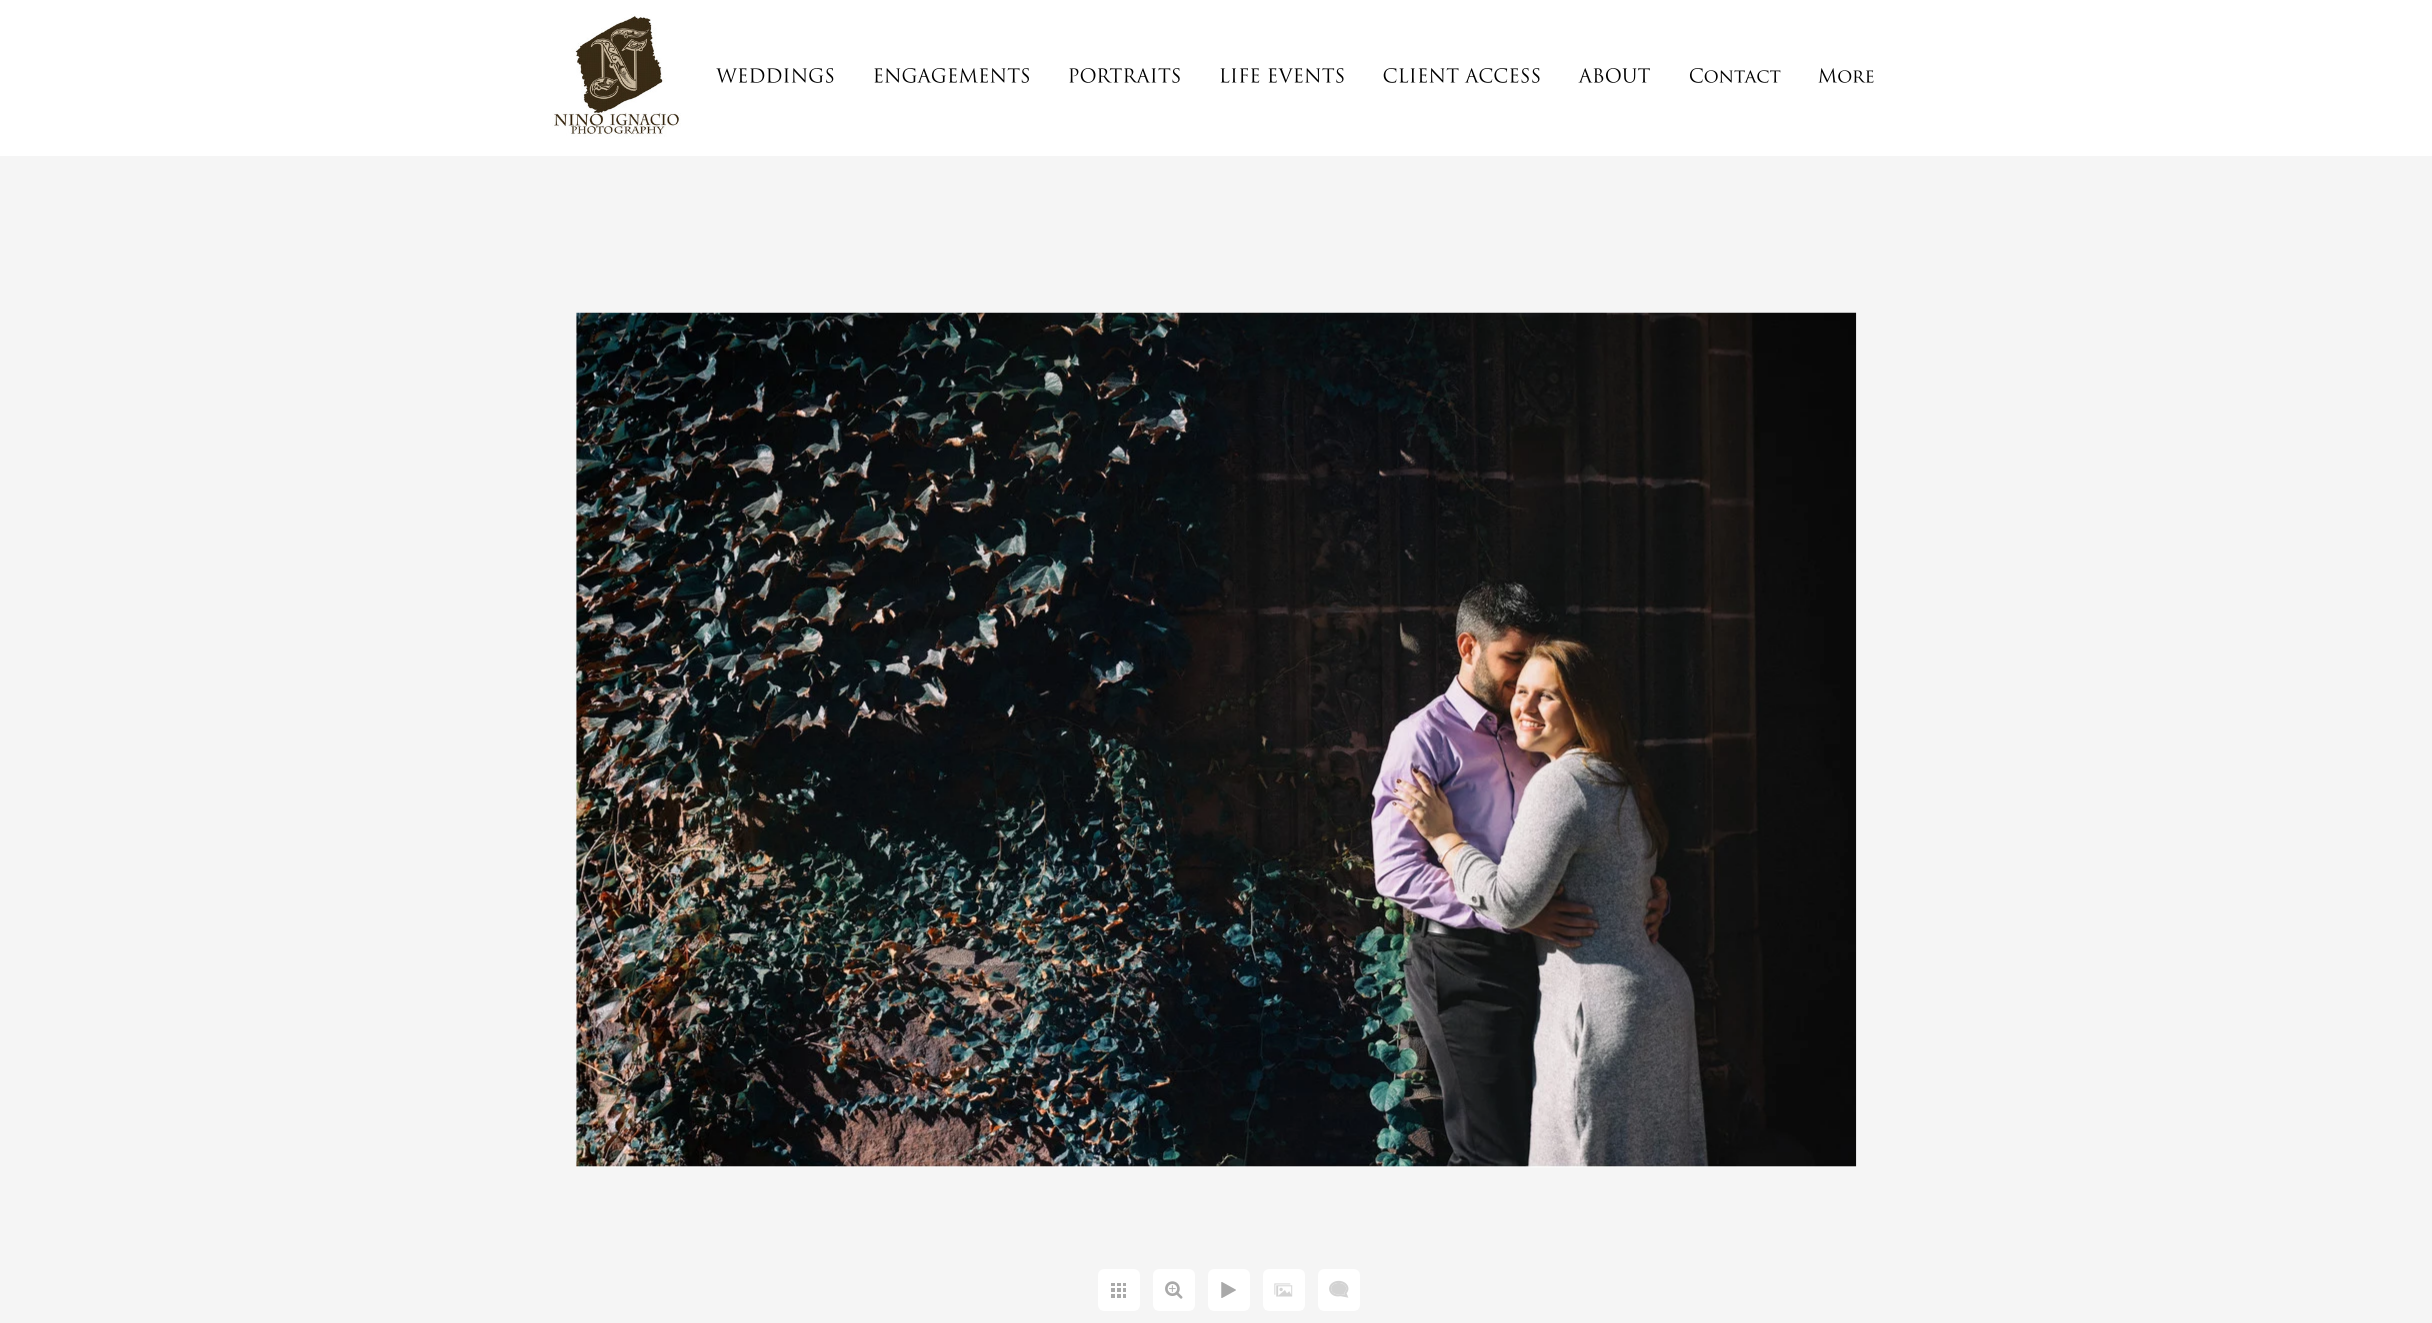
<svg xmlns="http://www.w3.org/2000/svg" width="2432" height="1323">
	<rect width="100%" height="100%" fill="#F5F5F5" />
	<rect x="0" y="0" width="2432" height="156" fill="#FFFFFF" />
	<image x="552" y="14" width="129" height="123" href="assets/img1.png" />
	<image x="716" y="68" width="118" height="15" href="assets/img2.png" />
	<image x="874" y="68" width="155" height="15" href="assets/img3.png" />
	<image x="1069" y="68" width="111" height="15" href="assets/img4.png" />
	<image x="1220" y="68" width="124" height="15" href="assets/img5.png" />
	<image x="1383" y="68" width="157" height="15" href="assets/img6.png" />
	<image x="1578" y="68" width="72" height="15" href="assets/img7.png" />
	<image x="1689" y="68" width="92" height="15" href="assets/img8.png" />
	<image x="1818" y="68" width="56" height="15" href="assets/img9.png" />
	<image x="576" y="312" width="1281" height="856" href="assets/img10.png" />
	<rect x="1098" y="1269" width="42" height="42" rx="6" fill="#FFFFFF" />
	<image x="1111" y="1283" width="15" height="15" href="assets/img11.png" />
	<rect x="1153" y="1269" width="42" height="42" rx="6" fill="#FFFFFF" />
	<image x="1165" y="1281" width="18" height="18" href="assets/img12.png" />
	<rect x="1208" y="1269" width="42" height="42" rx="6" fill="#FFFFFF" />
	<image x="1221" y="1282" width="15" height="16" href="assets/img13.png" />
	<rect x="1263" y="1269" width="42" height="42" rx="6" fill="#FFFFFF" />
	<image x="1274" y="1283" width="19" height="14" href="assets/img14.png" />
	<rect x="1318" y="1269" width="42" height="42" rx="6" fill="#FFFFFF" />
	<image x="1329" y="1280" width="20" height="18" href="assets/img15.png" />
</svg>
